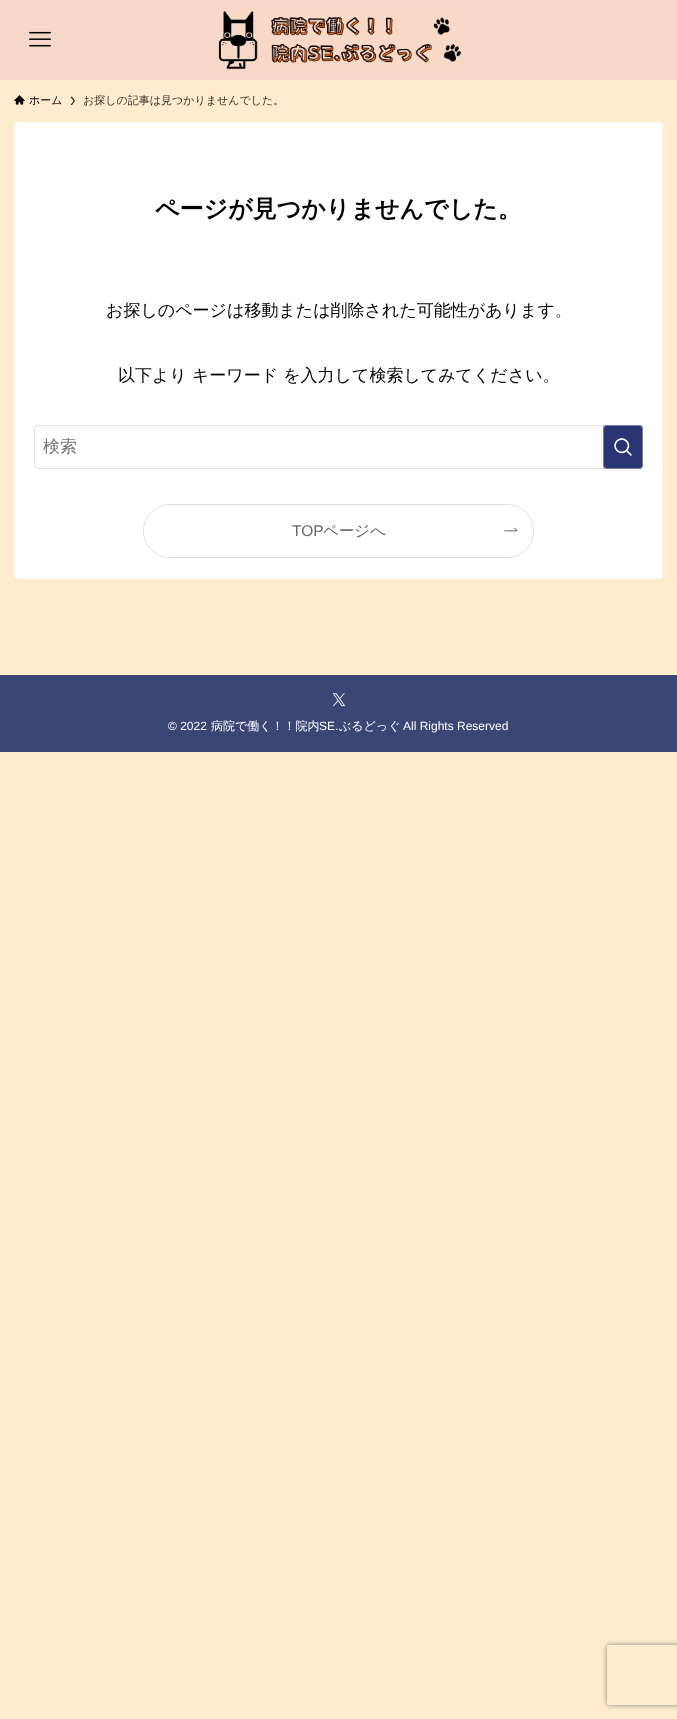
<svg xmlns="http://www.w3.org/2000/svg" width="677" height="1719">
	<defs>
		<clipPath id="clip1"><path d="M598 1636H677V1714H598ZM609 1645H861C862 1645 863 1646 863 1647V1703C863 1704 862 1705 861 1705H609C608 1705 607 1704 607 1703V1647C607 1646 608 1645 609 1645Z" clip-rule="evenodd" /></clipPath>
	</defs>
	<rect width="100%" height="100%" fill="#FFEBCE" />
	<rect x="0" y="0" width="677" height="80" fill="#F7D8C8" />
	<image x="29" y="31" width="22" height="16" href="assets/img1.png" />
	<image x="218" y="11" width="243" height="58" href="assets/img2.png" />
	<image x="14" y="95" width="11" height="10" href="assets/img3.png" />
	<text x="29" y="104" font-family="WenQuanYi Zen Hei" font-size="11" font-weight="500" fill="#000000">ホーム</text>
	<path d="M72 96.5L70.5 97L73.5 101L70.5 105H72L75 101Z" fill="#332F29" />
	<text x="83" y="104" font-family="WenQuanYi Zen Hei" font-size="11" font-weight="500" fill="#332F29">お探しの記事は見つかりませんでした。</text>
	<rect x="14" y="122" width="649" height="457" rx="4" fill="#000000" fill-opacity="0.12" filter="blur(0.5px)" />
	<rect x="14" y="122" width="649" height="457" rx="4" fill="#FFFFFF" />
	<text x="155" y="217" font-family="WenQuanYi Zen Hei" font-size="24" font-weight="700" fill="#000000">ページが見つかりませんでした。</text>
	<g font-family="WenQuanYi Zen Hei" font-size="17" font-weight="500" fill="#000000">
		<text x="106" y="316">お探しのページは移動または削除された可能性があります。</text>
		<text x="118" y="381">以下より キーワード を入力して検索してみてください。</text>
	</g>
	<rect x="34.5" y="425.5" width="608" height="43" rx="3.5" fill="none" stroke="#E3E3E3" />
	<text x="43" y="452" font-family="WenQuanYi Zen Hei" font-size="17" font-weight="500" fill="#757575">検索</text>
	<rect x="603" y="425" width="40" height="44" rx="4" fill="#293475" />
	<rect x="603.5" y="425.5" width="39" height="43" rx="3.5" fill="none" stroke="#C7C7C7" stroke-opacity="0.5" />
	<image x="614" y="438" width="18" height="18" href="assets/img4.png" />
	<rect x="143.5" y="504.5" width="390" height="53" rx="26.5" fill="none" stroke="#DCDCDC" />
	<rect x="144" y="505" width="389" height="52" rx="26" fill="#FFFFFF" />
	<text x="292" y="536" font-family="Liberation Sans" font-size="15.5" fill="#666666">TOP</text>
	<text x="323" y="536" font-family="WenQuanYi Zen Hei" font-size="15.5" font-weight="500" fill="#666666">ページへ</text>
	<image x="504" y="527" width="14" height="5" href="assets/img5.png" />
	<rect x="0" y="675" width="677" height="77" fill="#3B4675" />
	<image x="332" y="693" width="14" height="14" href="assets/img6.png" />
	<text x="168" y="730" font-family="Liberation Sans" font-size="12" fill="#FFFFFF">© 2022</text>
	<text x="211" y="730" font-family="WenQuanYi Zen Hei" font-size="12" font-weight="500" fill="#FFFFFF">病院で働く！！院内</text>
	<text x="319" y="730" font-family="Liberation Sans" font-size="12" fill="#FFFFFF">SE.</text>
	<text x="339" y="730" font-family="WenQuanYi Zen Hei" font-size="12" font-weight="500" fill="#FFFFFF">ぶるどっぐ</text>
	<text x="403" y="730" font-family="Liberation Sans" font-size="12" fill="#FFFFFF">All Rights Reserved</text>
	<g clip-path="url(#clip1)">
		<rect x="607" y="1645" width="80" height="60" rx="2" fill="#808080" filter="blur(2.5px)" />
	</g>
</svg>
